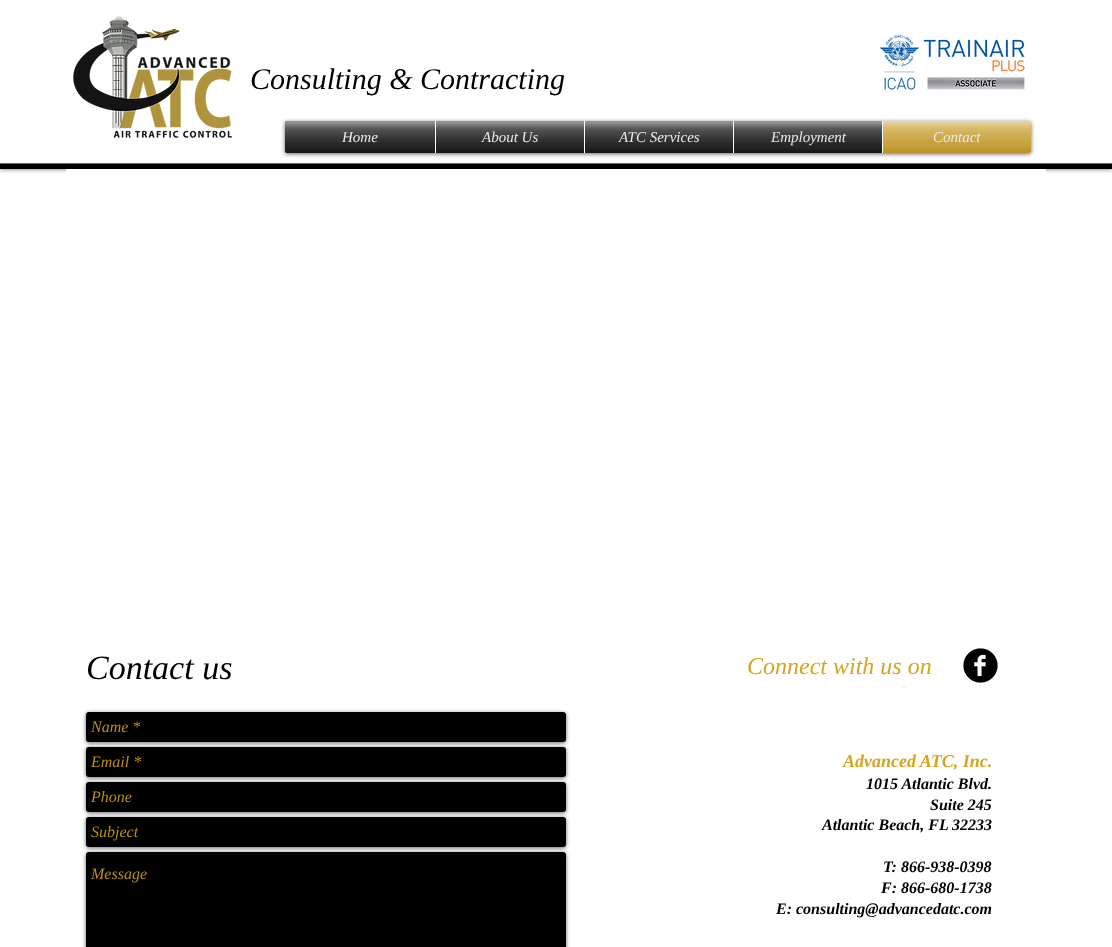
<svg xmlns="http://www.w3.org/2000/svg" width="1112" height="947">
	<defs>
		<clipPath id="clip1"><rect x="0" y="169" width="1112" height="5" /></clipPath>
	</defs>
	<rect width="100%" height="100%" fill="#FFFFFF" />
	<g clip-path="url(#clip1)">
		<rect x="0" y="0" width="1112" height="169" fill="#000000" fill-opacity="0.6" filter="blur(2.5px)" />
	</g>
	<rect x="0" y="163" width="1112" height="1" fill="#666666" />
	<rect x="0" y="164" width="1112" height="5" fill="#000000" />
	<image x="73" y="16" width="159" height="122" href="assets/img1.png" />
	<text x="250" y="89" font-family="Liberation Serif" font-size="30" font-style="italic" fill="#000000">Consulting &amp; Contracting</text>
	<image x="879" y="34" width="146" height="56" href="assets/img2.png" />
	<rect x="285" y="122" width="746" height="32" rx="2" fill="#000000" fill-opacity="0.6" filter="blur(2px)" />
	<image x="285" y="121" width="746" height="32" href="assets/img3.png" />
	<image x="285" y="151" width="746" height="2" href="assets/img4.png" />
	<path d="M287 121H435V153H287C286 153 285 152 285 151V123C285 122 286 121 287 121Z" fill="#000000" />
	<text x="342" y="142" font-family="Liberation Serif" font-size="15" font-style="italic" fill="#FFFFFF">Home</text>
	<image x="285" y="121" width="150" height="32" href="assets/img5.png" />
	<image x="285" y="121" width="150" height="24" href="assets/img6.png" />
	<rect x="436" y="121" width="148" height="32" fill="#000000" />
	<rect x="435" y="121" width="1" height="32" fill="#FFFFFF" />
	<text x="482" y="142" font-family="Liberation Serif" font-size="15" font-style="italic" fill="#FFFFFF">About Us</text>
	<image x="436" y="121" width="148" height="32" href="assets/img7.png" />
	<image x="436" y="121" width="148" height="24" href="assets/img8.png" />
	<rect x="585" y="121" width="148" height="32" fill="#000000" />
	<rect x="584" y="121" width="1" height="32" fill="#FFFFFF" />
	<text x="619" y="142" font-family="Liberation Serif" font-size="15" font-style="italic" fill="#FFFFFF">ATC Services</text>
	<image x="585" y="121" width="148" height="32" href="assets/img9.png" />
	<image x="585" y="121" width="148" height="24" href="assets/img10.png" />
	<rect x="734" y="121" width="148" height="32" fill="#000000" />
	<rect x="733" y="121" width="1" height="32" fill="#FFFFFF" />
	<text x="771" y="142" font-family="Liberation Serif" font-size="15" font-style="italic" fill="#FFFFFF">Employment</text>
	<image x="734" y="121" width="148" height="32" href="assets/img11.png" />
	<image x="734" y="121" width="148" height="25" href="assets/img12.png" />
	<path d="M882 121H1029C1030 121 1031 122 1031 123V151C1031 152 1030 153 1029 153H882Z" fill="#D6A41E" />
	<rect x="882" y="121" width="1" height="32" fill="#FFFFFF" />
	<text x="933" y="142" font-family="Liberation Serif" font-size="15" font-style="italic" fill="#FFFFFF">Contact</text>
	<image x="883" y="121" width="148" height="32" href="assets/img13.png" />
	<image x="883" y="121" width="148" height="32" href="assets/img14.png" />
	<rect x="66" y="169" width="980" height="5" fill="#FFFFFF" />
	<text x="86" y="679" font-family="Liberation Serif" font-size="34" font-style="italic" fill="#000000">Contact us</text>
	<text x="747" y="674" font-family="Liberation Serif" font-size="24" font-style="italic" fill="#D6A41E">Connect with us on</text>
	<image x="963" y="648" width="35" height="35" href="assets/img15.png" />
	<rect x="86" y="713" width="480" height="30" rx="3" fill="#000000" fill-opacity="0.6" filter="blur(2px)" />
	<rect x="86" y="712" width="480" height="30" rx="3" fill="#000000" />
	<text x="91" y="732" font-family="Liberation Serif" font-size="16" font-style="italic" fill="#BD8F17">Name *</text>
	<rect x="86" y="748" width="480" height="30" rx="3" fill="#000000" fill-opacity="0.6" filter="blur(2px)" />
	<rect x="86" y="747" width="480" height="30" rx="3" fill="#000000" />
	<text x="91" y="767" font-family="Liberation Serif" font-size="16" font-style="italic" fill="#BD8F17">Email *</text>
	<rect x="86" y="783" width="480" height="30" rx="3" fill="#000000" fill-opacity="0.6" filter="blur(2px)" />
	<rect x="86" y="782" width="480" height="30" rx="3" fill="#000000" />
	<text x="91" y="802" font-family="Liberation Serif" font-size="16" font-style="italic" fill="#BD8F17">Phone</text>
	<rect x="86" y="818" width="480" height="30" rx="3" fill="#000000" fill-opacity="0.6" filter="blur(2px)" />
	<rect x="86" y="817" width="480" height="30" rx="3" fill="#000000" />
	<text x="91" y="837" font-family="Liberation Serif" font-size="16" font-style="italic" fill="#BD8F17">Subject</text>
	<rect x="86" y="853" width="480" height="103" rx="3" fill="#000000" fill-opacity="0.6" filter="blur(2px)" />
	<rect x="86" y="852" width="480" height="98" rx="3" fill="#000000" />
	<text x="91" y="879" font-family="Liberation Serif" font-size="16" font-style="italic" fill="#BD8F17">Message</text>
	<text x="843" y="767" font-family="Liberation Serif" font-size="18" font-weight="700" font-style="italic" fill="#D6A41E">Advanced ATC, Inc.</text>
	<g font-family="Liberation Serif" font-size="16" font-weight="700" font-style="italic" fill="#000000">
		<text x="866" y="789">1015 Atlantic Blvd.</text>
		<text x="930" y="810">Suite 245</text>
		<text x="822" y="830">Atlantic Beach, FL 32233</text>
		<text x="883" y="872">T: 866-938-0398</text>
		<text x="881" y="893">F: 866-680-1738</text>
		<text x="776" y="914">E: consulting@advancedatc.com</text>
	</g>
</svg>
